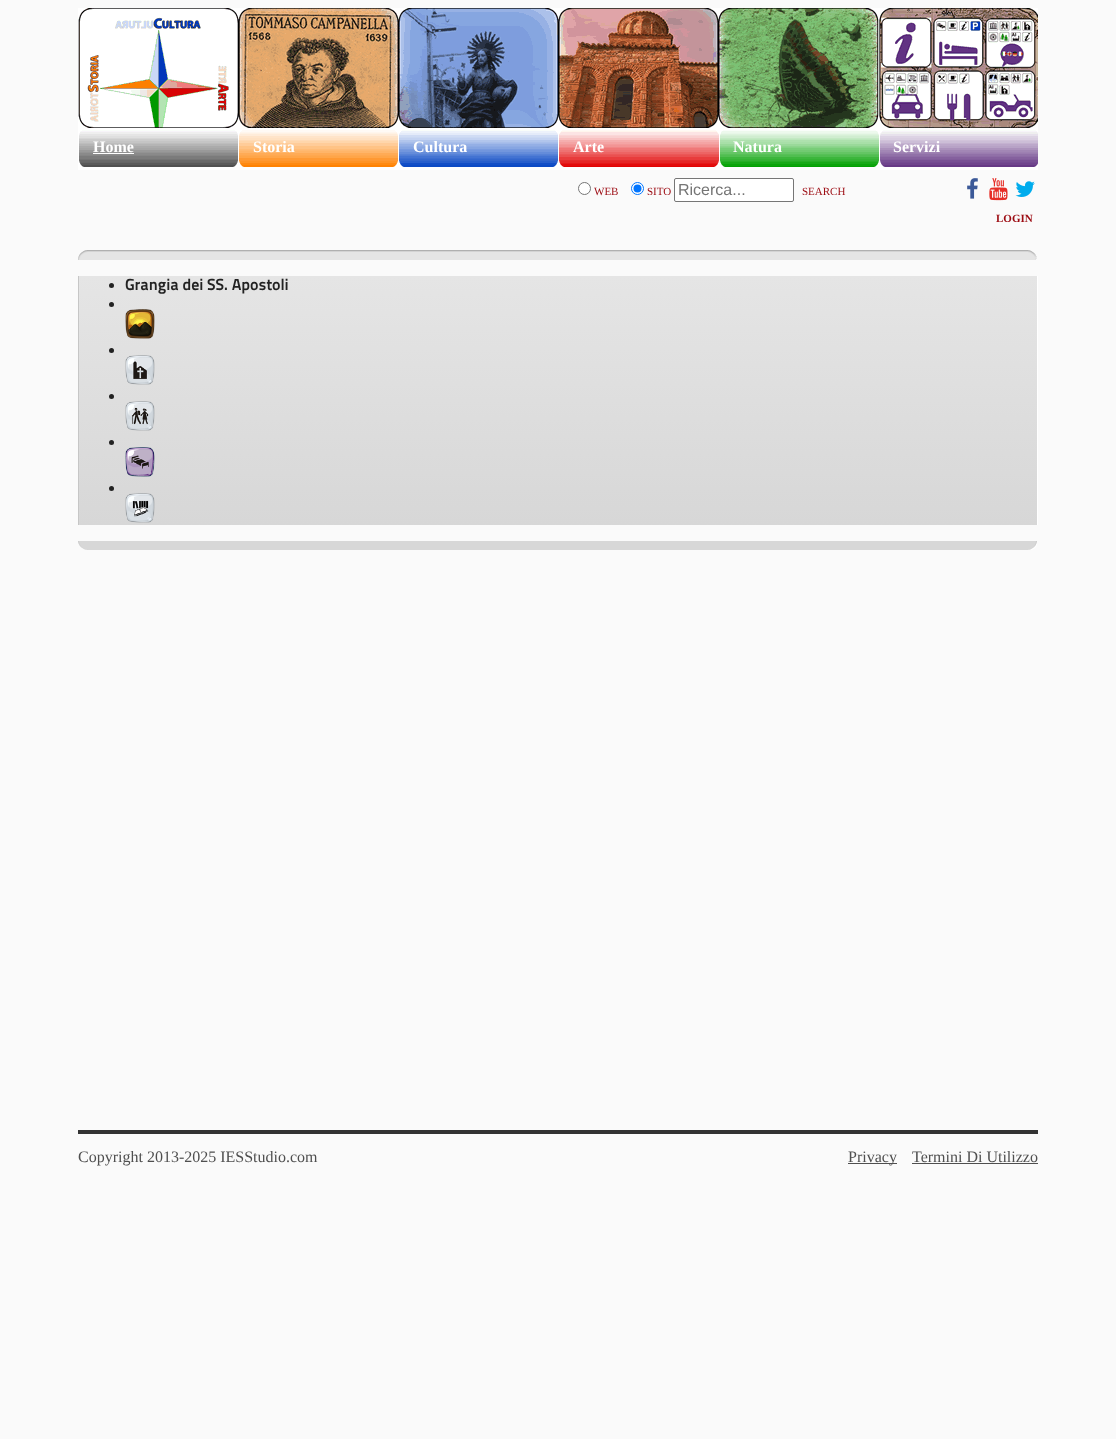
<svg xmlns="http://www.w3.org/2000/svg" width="1116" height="1439">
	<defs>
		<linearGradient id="g1" gradientUnits="userSpaceOnUse" x1="79" y1="276" x2="79" y2="525"><stop offset="0" stop-color="#E5E5E5" /><stop offset="1" stop-color="#D7D7D7" /></linearGradient>
	</defs>
	<rect width="100%" height="100%" fill="#FAFAFA" />
	<image x="78" y="8" width="960" height="120" href="assets/img1.png" />
	<rect x="78" y="128" width="960" height="42" fill="#FFFFFF" />
	<image x="79" y="130" width="959" height="37" href="assets/img2.png" />
	<text x="93" y="152" font-family="Liberation Serif" font-size="16" font-weight="700" fill="#FFFFFF">Home</text>
	<rect x="93" y="153" width="41" height="1" fill="#FFFFFF" />
	<g font-family="Liberation Serif" font-size="16" font-weight="700" fill="#FFFFFF">
		<text x="253" y="152">Storia</text>
		<text x="413" y="152">Cultura</text>
		<text x="573" y="152">Arte</text>
		<text x="733" y="152">Natura</text>
		<text x="893" y="152">Servizi</text>
	</g>
	<circle cx="584.5" cy="188.5" r="6" fill="#FFFFFF" stroke="#767676" />
	<text x="594" y="195" font-family="Liberation Serif" font-size="11" fill="#9C0B12">WEB</text>
	<circle cx="637.5" cy="188.5" r="6" fill="#FFFFFF" stroke="#0075FF" />
	<circle cx="637.5" cy="188.5" r="4" fill="#0075FF" />
	<text x="647" y="195" font-family="Liberation Serif" font-size="11" fill="#9C0B12">SITO</text>
	<rect x="674.5" y="178.5" width="119" height="23" rx="1.5" fill="#FFFFFF" stroke="#767676" />
	<text x="678" y="195" font-family="Liberation Sans" font-size="16" fill="#757575">Ricerca...</text>
	<text x="802" y="195" font-family="Liberation Serif" font-size="11" fill="#9C0B12">SEARCH</text>
	<image x="967" y="178" width="11" height="21" href="assets/img3.png" />
	<image x="989" y="178" width="19" height="23" href="assets/img4.png" />
	<image x="1015" y="181" width="20" height="16" href="assets/img5.png" />
	<text x="996" y="222" font-family="Liberation Serif" font-size="11" font-weight="700" fill="#9C0B12">LOGIN</text>
	<image x="78" y="250" width="10" height="10" href="assets/img6.png" />
	<image x="1028" y="250" width="9" height="10" href="assets/img7.png" />
	<image x="88" y="250" width="940" height="10" href="assets/img8.png" />
	<rect x="79" y="276" width="958" height="249" fill="url(#g1)" />
	<rect x="1037" y="276" width="1" height="249" fill="#FFFFFF" />
	<rect x="78" y="276" width="1" height="249" fill="#C6C6C6" />
	<circle cx="111.5" cy="285.5" r="2.5" fill="#222222" />
	<text x="125" y="290" font-family="'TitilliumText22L'" font-size="16" font-weight="700" fill="#222222">Grangia dei SS. Apostoli</text>
	<circle cx="111.5" cy="304.5" r="2.5" fill="#222222" />
	<image x="125" y="309" width="30" height="30" href="assets/img9.png" />
	<circle cx="111.5" cy="350.5" r="2.5" fill="#222222" />
	<image x="125" y="355" width="30" height="30" href="assets/img10.png" />
	<circle cx="111.5" cy="396.5" r="2.5" fill="#222222" />
	<image x="125" y="401" width="30" height="30" href="assets/img11.png" />
	<circle cx="111.5" cy="442.5" r="2.5" fill="#222222" />
	<image x="125" y="447" width="30" height="30" href="assets/img12.png" />
	<circle cx="111.5" cy="488.5" r="2.5" fill="#222222" />
	<image x="125" y="493" width="30" height="30" href="assets/img13.png" />
	<image x="78" y="541" width="10" height="9" href="assets/img14.png" />
	<image x="1028" y="541" width="9" height="9" href="assets/img15.png" />
	<rect x="88" y="541" width="940" height="9" fill="#D7D7D7" />
	<rect x="78" y="1130" width="960" height="4" fill="#333333" />
	<text x="78" y="1162" font-family="Liberation Serif" font-size="16" fill="#4F4F4F">Copyright 2013-2025 IESStudio.com</text>
	<rect x="848" y="1163" width="49" height="1" fill="#4F4F4F" />
	<g font-family="Liberation Serif" font-size="16" fill="#4F4F4F">
		<text x="848" y="1162">Privacy</text>
		<text x="912" y="1162">Termini Di Utilizzo</text>
	</g>
	<rect x="912" y="1163" width="126" height="1" fill="#4F4F4F" />
</svg>
